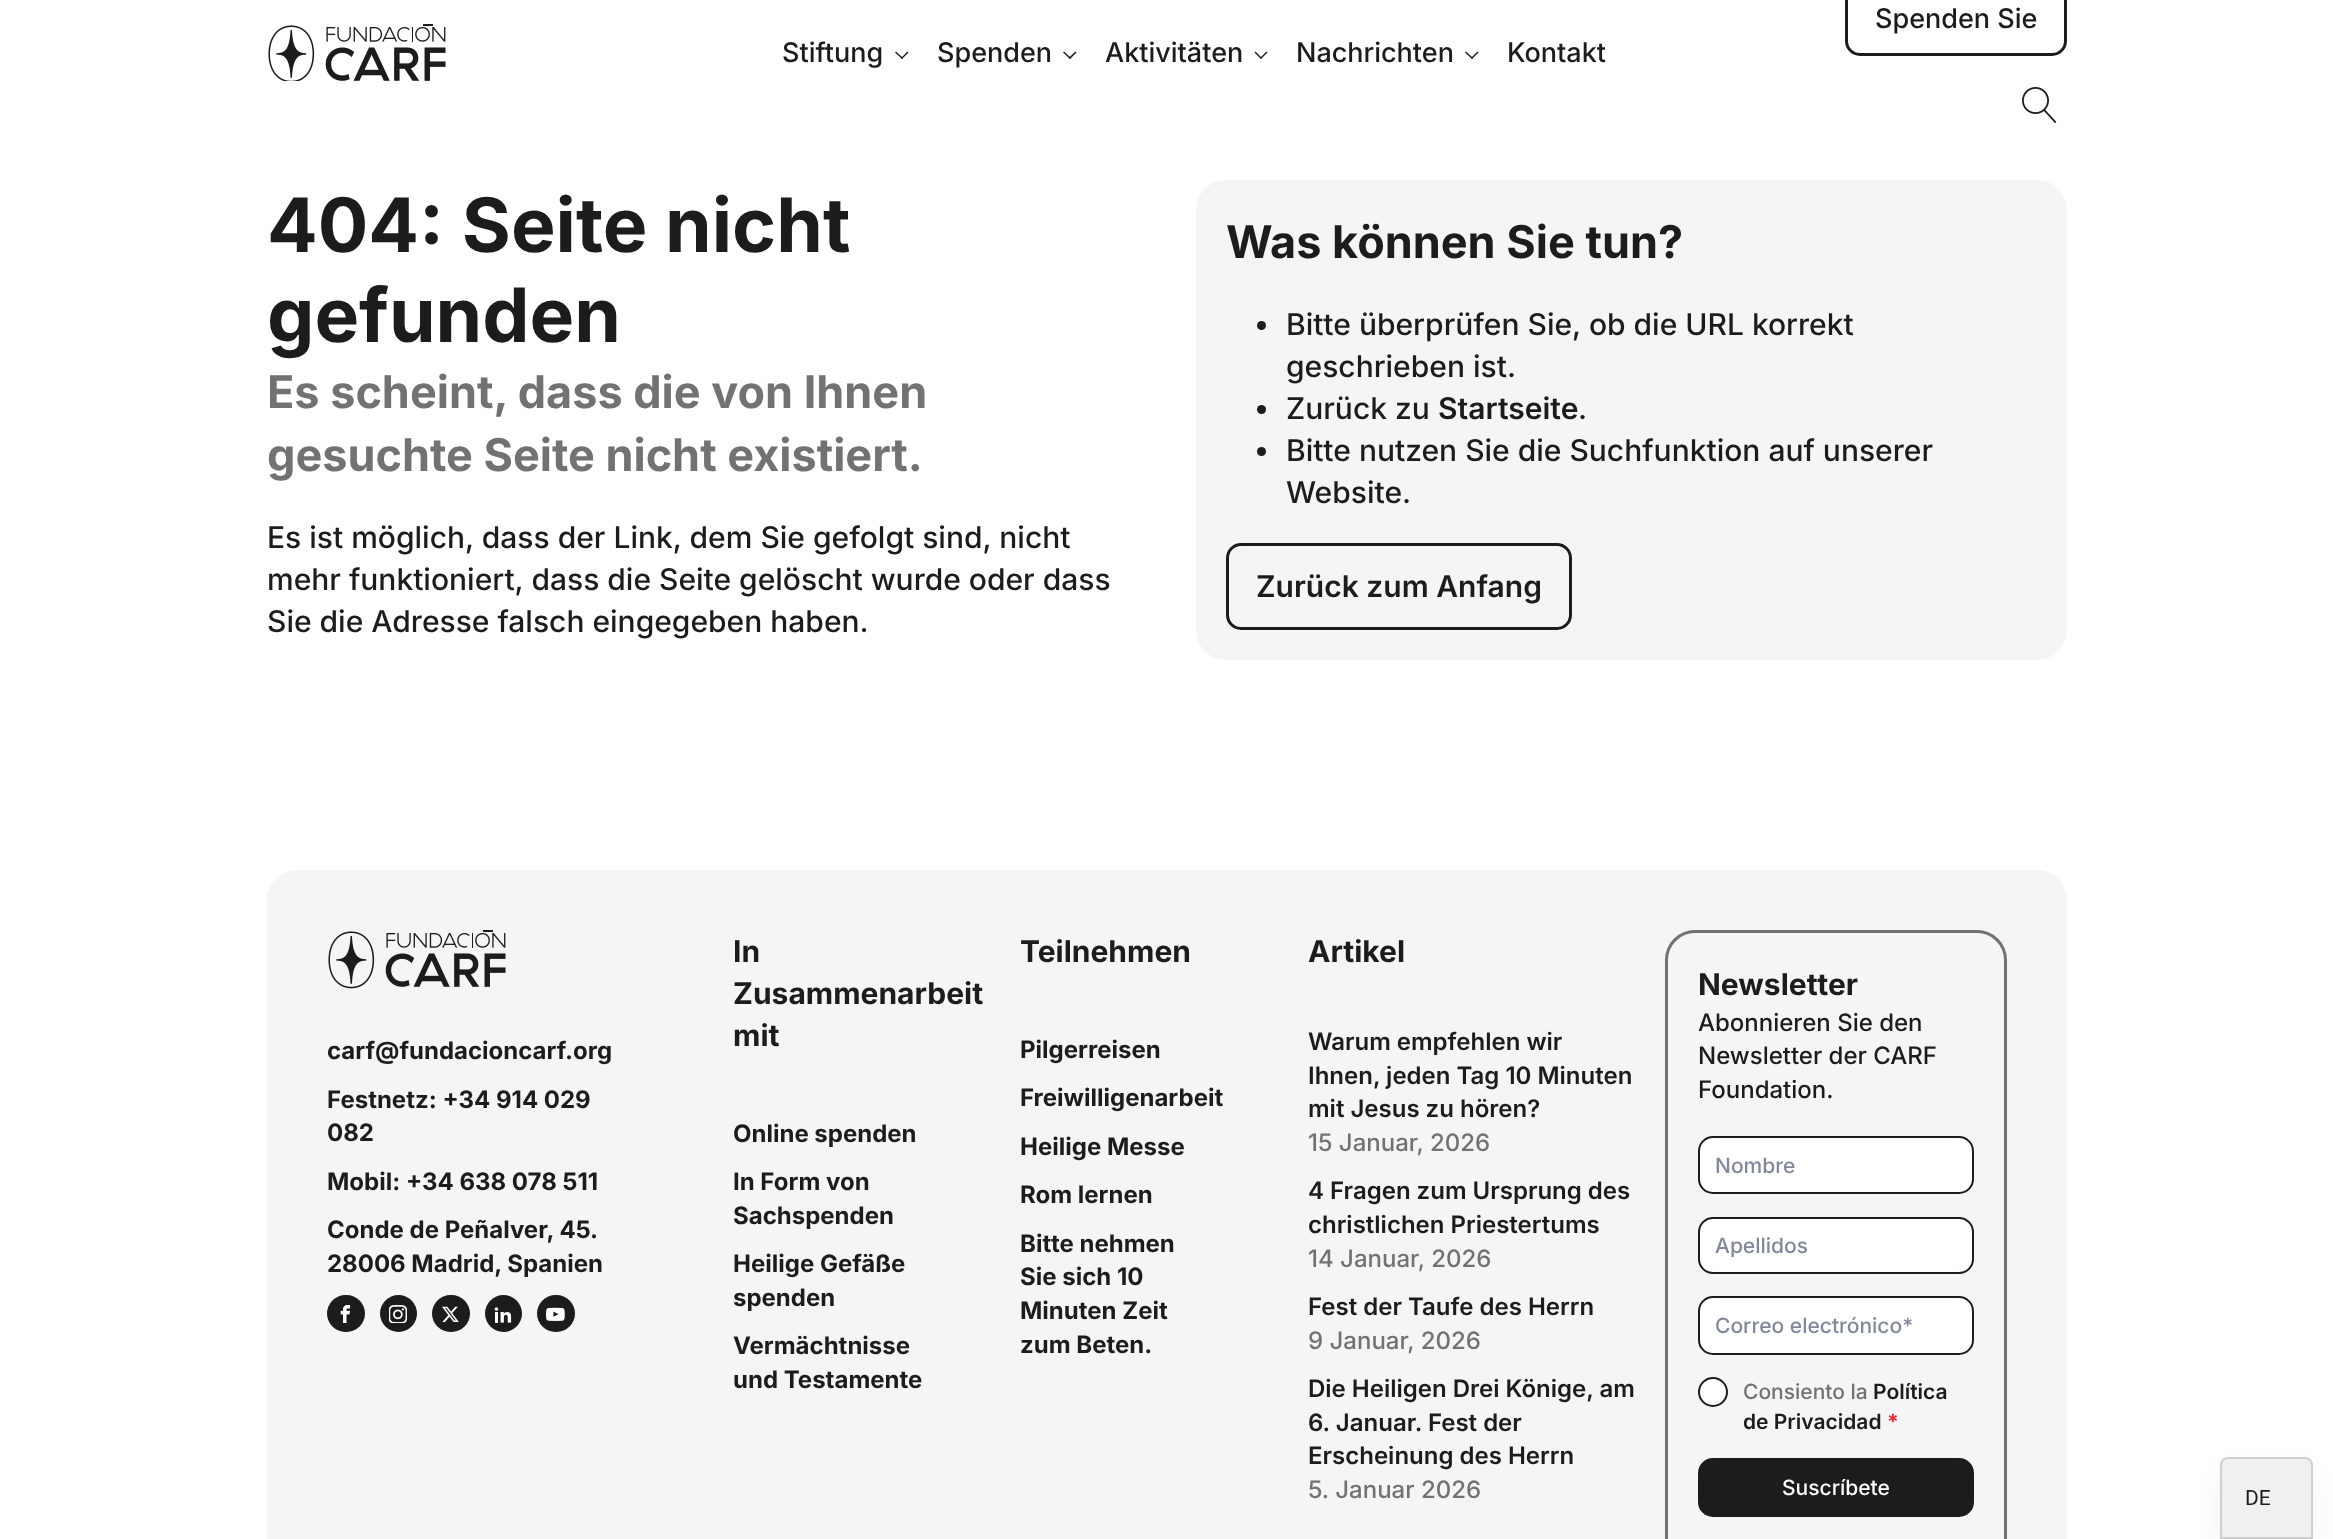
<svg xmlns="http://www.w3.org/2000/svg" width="2333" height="1539">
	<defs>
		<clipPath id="clip1"><rect x="1715" y="1232" width="243" height="25" /></clipPath>
	</defs>
	<rect width="100%" height="100%" fill="#FFFFFF" />
	<rect x="1846.5" y="-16.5" width="219" height="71" rx="13.5" fill="none" stroke="#1C1C1C" stroke-width="3" />
	<text x="1875" y="28" font-family="Inter" font-size="27" font-weight="500" fill="#1C1C1C">Spenden Sie</text>
	<image x="2022" y="87" width="35" height="36" href="assets/img1.png" />
	<image x="268" y="24" width="178" height="57" href="assets/img2.png" />
	<text x="782" y="62" font-family="Inter" font-size="27" font-weight="500" fill="#1C1C1C">Stiftung</text>
	<path d="M908.5 52.5L902 59L901 58L907.5 51.5Z" fill="#1C1C1C" />
	<path d="M903 58L902 59L895 52.5L896 51.5Z" fill="#1C1C1C" />
	<text x="937" y="62" font-family="Inter" font-size="27" font-weight="500" fill="#1C1C1C">Spenden</text>
	<path d="M1076.5 52.5L1070 59L1068.5 58L1075.5 51.5Z" fill="#1C1C1C" />
	<path d="M1071 58L1070 59L1063 52.5L1064 51.5Z" fill="#1C1C1C" />
	<text x="1105" y="62" font-family="Inter" font-size="27" font-weight="500" fill="#1C1C1C">Aktivitäten</text>
	<path d="M1267.5 52.5L1261 59L1260 58L1266.5 51.5Z" fill="#1C1C1C" />
	<path d="M1262 58L1261 59L1254.5 52.5L1255.5 51.5Z" fill="#1C1C1C" />
	<text x="1296" y="62" font-family="Inter" font-size="27" font-weight="500" fill="#1C1C1C">Nachrichten</text>
	<path d="M1478.5 52.5L1472 59L1471 58L1477.5 51.5Z" fill="#1C1C1C" />
	<path d="M1473 58L1472 59L1465 52.5L1466 51.5Z" fill="#1C1C1C" />
	<text x="1507" y="62" font-family="Inter" font-size="27" font-weight="500" fill="#1C1C1C">Kontakt</text>
	<g font-family="Inter" font-size="75" font-weight="700" fill="#1C1C1C">
		<text x="267" y="252">404: Seite nicht</text>
		<text x="267" y="342">gefunden</text>
	</g>
	<g font-family="Inter" font-size="45" font-weight="700" fill="#727272">
		<text x="267" y="408">Es scheint, dass die von Ihnen</text>
		<text x="267" y="471">gesuchte Seite nicht existiert.</text>
	</g>
	<g font-family="Inter" font-size="30" font-weight="500" fill="#1C1C1C">
		<text x="267" y="548">Es ist möglich, dass der Link, dem Sie gefolgt sind, nicht</text>
		<text x="267" y="590">mehr funktioniert, dass die Seite gelöscht wurde oder dass</text>
		<text x="267" y="632">Sie die Adresse falsch eingegeben haben.</text>
	</g>
	<rect x="1196" y="180" width="871" height="480" rx="30" fill="#F5F5F7" />
	<text x="1226" y="258" font-family="Inter" font-size="45" font-weight="700" fill="#1C1C1C">Was können Sie tun?</text>
	<circle cx="1261.5" cy="325.5" r="4.5" fill="#1C1C1C" />
	<g font-family="Inter" font-size="30" font-weight="500" fill="#1C1C1C">
		<text x="1286" y="335">Bitte überprüfen Sie, ob die URL korrekt</text>
		<text x="1286" y="377">geschrieben ist.</text>
	</g>
	<circle cx="1261.5" cy="409.5" r="4.5" fill="#1C1C1C" />
	<text x="1286" y="419" font-family="Inter" font-size="30" font-weight="500" fill="#1C1C1C">Zurück zu</text>
	<text x="1438" y="419" font-family="Inter" font-size="30" font-weight="600" fill="#1C1C1C">Startseite</text>
	<text x="1578" y="419" font-family="Inter" font-size="30" font-weight="500" fill="#1C1C1C">.</text>
	<circle cx="1261.5" cy="451.5" r="4.5" fill="#1C1C1C" />
	<g font-family="Inter" font-size="30" font-weight="500" fill="#1C1C1C">
		<text x="1286" y="461">Bitte nutzen Sie die Suchfunktion auf unserer</text>
		<text x="1286" y="503">Website.</text>
	</g>
	<rect x="1227.5" y="544.5" width="343" height="84" rx="13.5" fill="none" stroke="#1C1C1C" stroke-width="3" />
	<text x="1256" y="597" font-family="Inter" font-size="30" font-weight="600" fill="#1C1C1C">Zurück zum Anfang</text>
	<rect x="267" y="870" width="1800" height="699" rx="30" fill="#F5F5F7" />
	<image x="328" y="930" width="178" height="59" href="assets/img3.png" />
	<g font-family="Inter" font-size="24" font-weight="700" fill="#1C1C1C">
		<text x="327" y="1059">carf@fundacioncarf.org</text>
		<text x="327" y="1108">Festnetz: +34 914 029</text>
		<text x="327" y="1141">082</text>
		<text x="327" y="1190">Mobil: +34 638 078 511</text>
		<text x="327" y="1238">Conde de Peñalver, 45.</text>
		<text x="327" y="1272">28006 Madrid, Spanien</text>
	</g>
	<rect x="327" y="1295" width="38" height="37" rx="18.5" fill="#1C1C1C" />
	<image x="340" y="1305" width="11" height="18" href="assets/img4.png" />
	<circle cx="398.5" cy="1313.5" r="18.5" fill="#1C1C1C" />
	<image x="389" y="1305" width="18" height="18" href="assets/img5.png" />
	<rect x="432" y="1295" width="38" height="37" rx="18.5" fill="#1C1C1C" />
	<image x="442" y="1306" width="17" height="16" href="assets/img6.png" />
	<circle cx="503.5" cy="1313.5" r="18.5" fill="#1C1C1C" />
	<image x="494" y="1307" width="18" height="16" href="assets/img7.png" />
	<rect x="537" y="1295" width="38" height="37" rx="18.5" fill="#1C1C1C" />
	<image x="546" y="1307" width="19" height="14" href="assets/img8.png" />
	<g font-family="Inter" font-size="30" font-weight="700" fill="#1C1C1C">
		<text x="733" y="962">In</text>
		<text x="733" y="1004">Zusammenarbeit</text>
		<text x="733" y="1046">mit</text>
	</g>
	<g font-family="Inter" font-size="24" font-weight="700" fill="#1C1C1C">
		<text x="733" y="1142">Online spenden</text>
		<text x="733" y="1190">In Form von</text>
		<text x="733" y="1224">Sachspenden</text>
		<text x="733" y="1272">Heilige Gefäße</text>
		<text x="733" y="1306">spenden</text>
		<text x="733" y="1354">Vermächtnisse</text>
		<text x="733" y="1388">und Testamente</text>
	</g>
	<text x="1020" y="962" font-family="Inter" font-size="30" font-weight="700" fill="#1C1C1C">Teilnehmen</text>
	<g font-family="Inter" font-size="24" font-weight="700" fill="#1C1C1C">
		<text x="1020" y="1058">Pilgerreisen</text>
		<text x="1020" y="1106">Freiwilligenarbeit</text>
		<text x="1020" y="1155">Heilige Messe</text>
		<text x="1020" y="1203">Rom lernen</text>
		<text x="1020" y="1252">Bitte nehmen</text>
		<text x="1020" y="1285">Sie sich 10</text>
		<text x="1020" y="1319">Minuten Zeit</text>
		<text x="1020" y="1353">zum Beten.</text>
	</g>
	<text x="1308" y="962" font-family="Inter" font-size="30" font-weight="700" fill="#1C1C1C">Artikel</text>
	<g font-family="Inter" font-size="24" font-weight="600" fill="#1C1C1C">
		<text x="1308" y="1050">Warum empfehlen wir</text>
		<text x="1308" y="1084">Ihnen, jeden Tag 10 Minuten</text>
		<text x="1308" y="1117">mit Jesus zu hören?</text>
	</g>
	<text x="1308" y="1151" font-family="Inter" font-size="24" font-weight="500" fill="#727272">15 Januar, 2026</text>
	<g font-family="Inter" font-size="24" font-weight="600" fill="#1C1C1C">
		<text x="1308" y="1199">4 Fragen zum Ursprung des</text>
		<text x="1308" y="1233">christlichen Priestertums</text>
	</g>
	<text x="1308" y="1267" font-family="Inter" font-size="24" font-weight="500" fill="#727272">14 Januar, 2026</text>
	<text x="1308" y="1315" font-family="Inter" font-size="24" font-weight="600" fill="#1C1C1C">Fest der Taufe des Herrn</text>
	<text x="1308" y="1349" font-family="Inter" font-size="24" font-weight="500" fill="#727272">9 Januar, 2026</text>
	<g font-family="Inter" font-size="24" font-weight="600" fill="#1C1C1C">
		<text x="1308" y="1397">Die Heiligen Drei Könige, am</text>
		<text x="1308" y="1431">6. Januar. Fest der</text>
		<text x="1308" y="1464">Erscheinung des Herrn</text>
	</g>
	<text x="1308" y="1498" font-family="Inter" font-size="24" font-weight="500" fill="#727272">5. Januar 2026</text>
	<rect x="1666.5" y="931.5" width="339" height="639" rx="28.5" fill="none" stroke="#727272" stroke-width="3" />
	<text x="1698" y="995" font-family="Inter" font-size="30" font-weight="700" fill="#1C1C1C">Newsletter</text>
	<g font-family="Inter" font-size="24" font-weight="500" fill="#1C1C1C">
		<text x="1698" y="1031">Abonnieren Sie den</text>
		<text x="1698" y="1064">Newsletter der CARF</text>
		<text x="1698" y="1098">Foundation.</text>
	</g>
	<rect x="1699" y="1137" width="274" height="56" rx="14" fill="#FFFFFF" stroke="#1C1C1C" stroke-width="2" />
	<text x="1715" y="1173" font-family="Inter" font-size="21" font-weight="500" fill="#82889B">Nombre</text>
	<rect x="1699" y="1218" width="274" height="55" rx="14" fill="#FFFFFF" stroke="#1C1C1C" stroke-width="2" />
	<g clip-path="url(#clip1)">
		<text x="1715" y="1253" font-family="Inter" font-size="21" font-weight="500" fill="#82889B">Apellidos</text>
	</g>
	<rect x="1699" y="1297" width="274" height="57" rx="14" fill="#FFFFFF" stroke="#1C1C1C" stroke-width="2" />
	<text x="1715" y="1333" font-family="Inter" font-size="21" font-weight="500" fill="#82889B">Correo electrónico*</text>
	<circle cx="1713" cy="1392" r="14" fill="#FFFFFF" stroke="#1C1C1C" stroke-width="2" />
	<text x="1743" y="1399" font-family="Inter" font-size="21" font-weight="500" fill="#727272">Consiento la</text>
	<g font-family="Inter" font-size="21" font-weight="600" fill="#1C1C1C">
		<text x="1873" y="1399">Política</text>
		<text x="1743" y="1429">de Privacidad</text>
	</g>
	<text x="1887" y="1429" font-family="Inter" font-size="21" font-weight="700" fill="#E62D35">*</text>
	<rect x="1699" y="1459" width="274" height="57" rx="14" fill="#1C1C1C" stroke="#1C1C1C" stroke-width="2" />
	<text x="1782" y="1495" font-family="Inter" font-size="21" font-weight="500" fill="#FFFFFF">Suscríbete</text>
	<rect x="2220" y="1472" width="93" height="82" rx="8" fill="#000000" fill-opacity="0.05" filter="blur(15px)" />
	<path d="M2228 1458H2305C2309 1458 2312 1461 2312 1465V1538H2221V1465C2221 1461 2224 1458 2228 1458Z" fill="#F0F0F0" stroke="#CFCFCF" stroke-width="2" />
	<text x="2245" y="1505" font-family="Roboto" font-size="21" fill="#1C1C1C">DE</text>
</svg>
